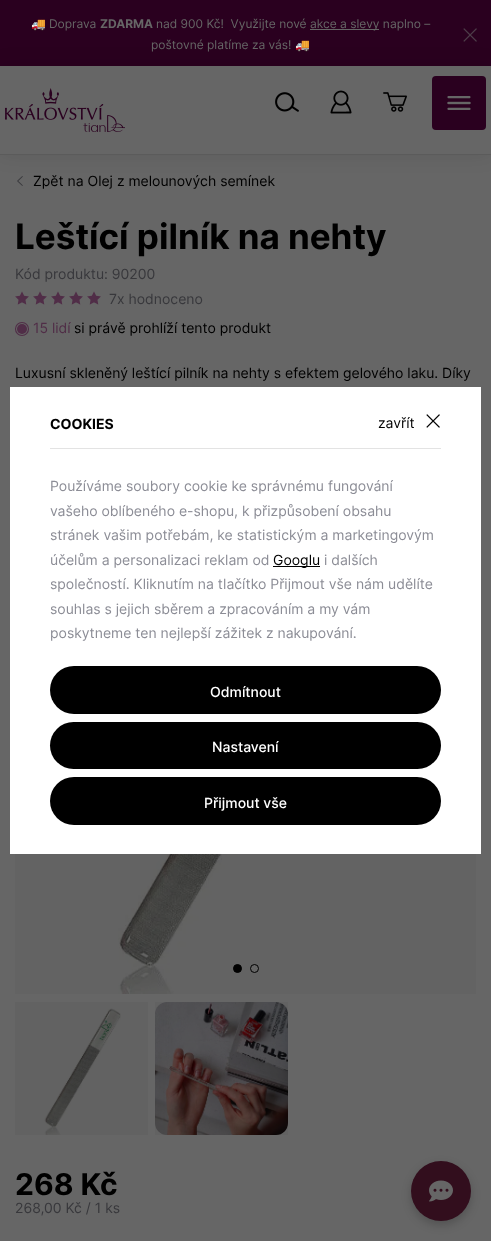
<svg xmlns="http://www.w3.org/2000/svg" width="491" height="1241">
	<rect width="100%" height="100%" fill="#666666" />
	<rect x="15" y="854" width="461" height="140" fill="#636363" />
	<rect x="0" y="0" width="491" height="66" fill="#2A001F" />
	<text x="31" y="28" font-family="Noto Color Emoji" font-size="12" fill="#666666">🚚</text>
	<text x="49" y="28" font-family="Inter" font-size="12" fill="#666666">Doprava</text>
	<text x="100" y="28" font-family="Inter" font-size="12" font-weight="700" fill="#666666">ZDARMA</text>
	<text x="156" y="28" font-family="Inter" font-size="12" fill="#666666" xml:space="preserve">nad 900 Kč!  Využijte nové</text>
	<rect x="310" y="29" width="69" height="1" fill="#666666" />
	<g font-family="Inter" font-size="12" fill="#666666">
		<text x="310" y="28">akce a slevy naplno –</text>
		<text x="151" y="49">poštovné platíme za vás!</text>
	</g>
	<text x="295" y="49" font-family="Noto Color Emoji" font-size="12" fill="#666666">🚚</text>
	<image x="463" y="28" width="14" height="14" href="assets/img1.png" />
	<image x="17" y="176" width="6" height="10" href="assets/img7.png" />
	<rect x="0" y="66" width="491" height="88" fill="#000000" fill-opacity="0.1" filter="blur(10px)" />
	<rect x="0" y="66" width="491" height="88" fill="#666666" />
	<rect x="0" y="154" width="491" height="1" fill="#5B5B5B" />
	<image x="5" y="88" width="120" height="44" href="assets/img2.png" />
	<image x="275" y="92" width="24" height="20" href="assets/img3.png" />
	<image x="330" y="90" width="22" height="24" href="assets/img4.png" />
	<image x="383" y="92" width="24" height="20" href="assets/img5.png" />
	<rect x="432" y="76" width="54" height="54" rx="4" fill="#2A001F" />
	<image x="447" y="96" width="24" height="14" href="assets/img6.png" />
	<text x="33" y="186" font-family="Inter" font-size="14" fill="#000000">Zpět na Olej z melounových semínek</text>
	<text x="15" y="249" font-family="Inter" font-size="35" font-weight="700" fill="#000000">Leštící pilník na nehty</text>
	<text x="15" y="279" font-family="Inter" font-size="14" fill="#38383C">Kód produktu: 90200</text>
	<image x="15" y="291" width="14" height="14" href="assets/img8.png" />
	<image x="33" y="291" width="14" height="14" href="assets/img8.png" />
	<image x="51" y="291" width="14" height="14" href="assets/img8.png" />
	<image x="69" y="291" width="14" height="14" href="assets/img8.png" />
	<image x="87" y="291" width="14" height="14" href="assets/img8.png" />
	<text x="109" y="304" font-family="Inter" font-size="14" fill="#38383C">7x hodnoceno</text>
	<text x="33" y="333" font-family="Inter" font-size="14" fill="#502D47">15 lidí</text>
	<circle cx="22" cy="329" r="6.5" fill="none" stroke="#502D47" stroke-width="1.1" />
	<circle cx="22" cy="329" r="5" fill="#502D47" />
	<g font-family="Inter" font-size="14" fill="#000000">
		<text x="74" y="333">si právě prohlíží tento produkt</text>
		<text x="15" y="378">Luxusní skleněný leštící pilník na nehty s efektem gelového laku. Díky</text>
	</g>
	<image x="118" y="854" width="263" height="140" href="assets/img9.png" />
	<circle cx="237.5" cy="968.5" r="4" fill="#000000" stroke="#000000" />
	<circle cx="254.5" cy="968.5" r="4" fill="#666666" stroke="#000000" />
	<image x="44" y="1008" width="77" height="127" href="assets/img10.png" />
	<rect x="15" y="1002" width="133" height="133" fill="#030202" fill-opacity="0.03" />
	<image x="155" y="1002" width="133" height="133" href="assets/img11.png" />
	<rect x="155" y="1002" width="133" height="133" fill="#030202" fill-opacity="0.03" />
	<text x="15" y="1195" font-family="Inter" font-size="30" font-weight="700" fill="#000000">268 Kč</text>
	<text x="15" y="1213" font-family="Inter" font-size="14" fill="#38383C">268,00 Kč / 1 ks</text>
	<rect x="10" y="387" width="471" height="467" fill="#FFFFFF" />
	<rect x="50" y="448" width="391" height="1" fill="#E3E3E3" />
	<text x="50" y="429" font-family="Inter" font-size="14" font-weight="700" fill="#000000">COOKIES</text>
	<text x="378" y="428" font-family="Inter" font-size="14" fill="#000000">zavřít</text>
	<image x="426" y="414" width="14" height="14" href="assets/img12.png" />
	<g font-family="Inter" font-size="14" fill="#8C8D96">
		<text x="50" y="491">Používáme soubory cookie ke správnému fungování</text>
		<text x="50" y="516">vašeho oblíbeného e-shopu, k přizpůsobení obsahu</text>
		<text x="50" y="540">stránek vašim potřebám, ke statistickým a marketingovým</text>
		<text x="50" y="565">účelům a personalizaci reklam od</text>
	</g>
	<rect x="273" y="566" width="47" height="1" fill="#000000" />
	<text x="273" y="565" font-family="Inter" font-size="14" fill="#000000">Googlu</text>
	<g font-family="Inter" font-size="14" fill="#8C8D96">
		<text x="324" y="565">i dalších</text>
		<text x="50" y="589">společností. Kliknutím na tlačítko Přijmout vše nám udělíte</text>
		<text x="50" y="614">souhlas s jejich sběrem a zpracováním a my vám</text>
		<text x="50" y="638">poskytneme ten nejlepší zážitek z nakupování.</text>
	</g>
	<rect x="50" y="666" width="391" height="48" rx="24" fill="#000000" />
	<text x="210" y="697" font-family="Inter" font-size="14" font-weight="500" fill="#FFFFFF">Odmítnout</text>
	<rect x="50" y="722" width="391" height="47" rx="23.5" fill="#000000" />
	<text x="212" y="752" font-family="Inter" font-size="14" font-weight="500" fill="#FFFFFF">Nastavení</text>
	<rect x="50" y="777" width="391" height="48" rx="24" fill="#000000" />
	<text x="204" y="808" font-family="Inter" font-size="14" font-weight="500" fill="#FFFFFF">Přijmout vše</text>
	<rect x="411" y="1165" width="60" height="60" rx="30" fill="#000000" fill-opacity="0.2" filter="blur(5px)" />
	<circle cx="441" cy="1191" r="30" fill="#320E1D" />
	<image x="429" y="1180" width="24" height="22" href="assets/img13.png" />
</svg>
